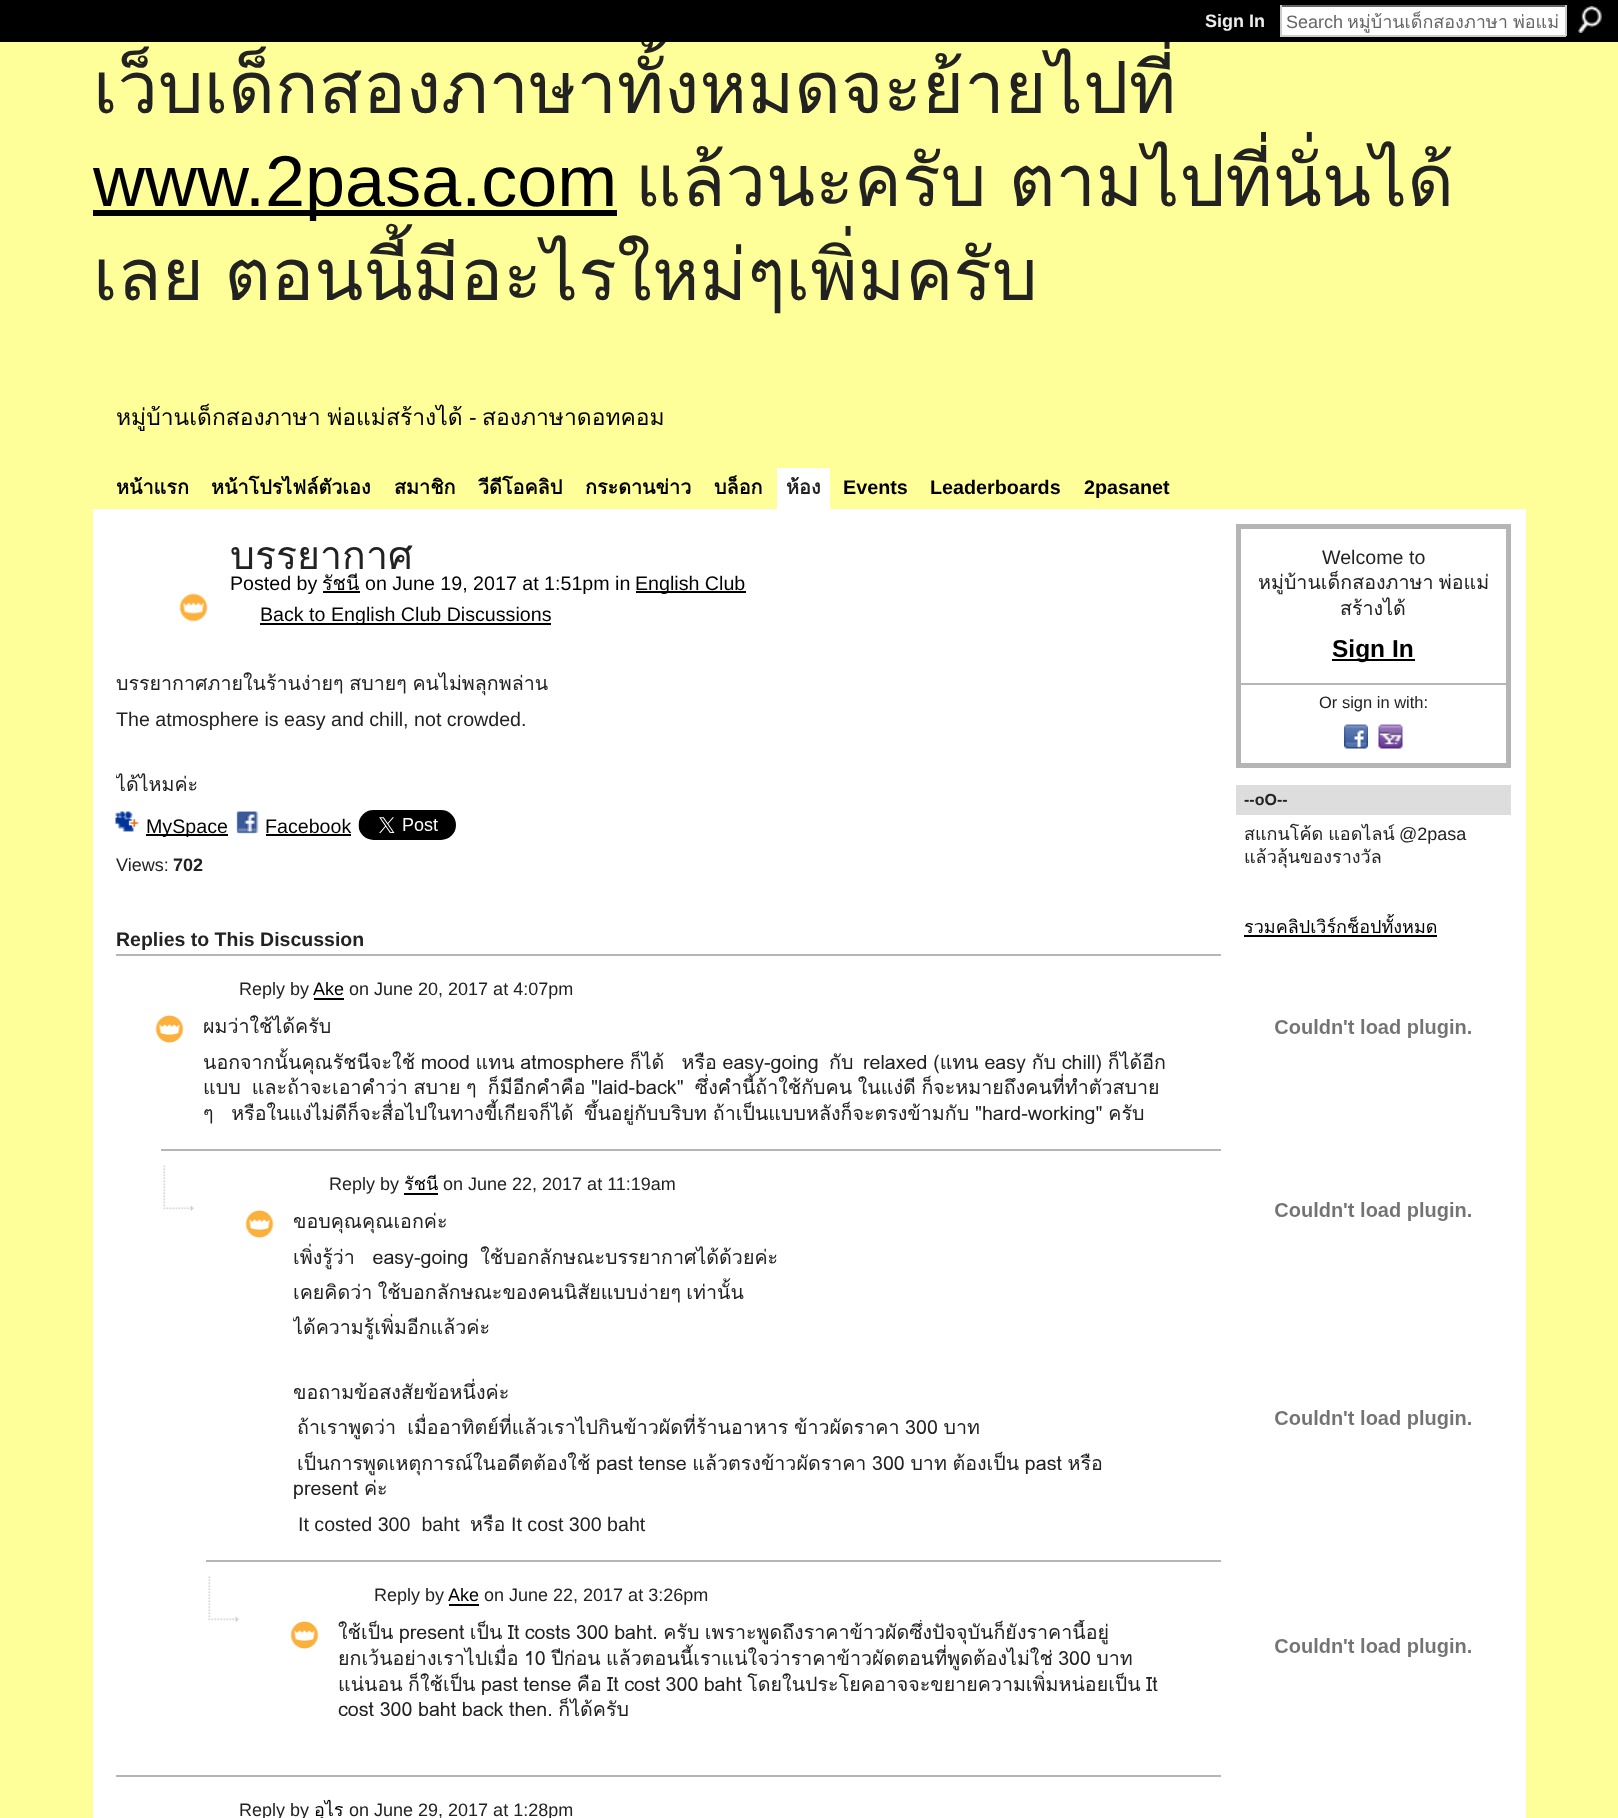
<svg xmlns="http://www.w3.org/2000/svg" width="1618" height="1818">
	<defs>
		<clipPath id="clip1"><rect x="93" y="42" width="1433" height="288" /></clipPath>
		<clipPath id="clip2"><rect x="116" y="671" width="1105" height="126" /></clipPath>
		<clipPath id="clip3"><rect x="203" y="1014" width="966" height="111" /></clipPath>
		<clipPath id="clip4"><rect x="293" y="1209" width="876" height="327" /></clipPath>
		<clipPath id="clip5"><rect x="338" y="1620" width="831" height="132" /></clipPath>
	</defs>
	<rect width="100%" height="100%" fill="#FFFF99" />
	<rect x="0" y="0" width="1618" height="42" fill="#000000" />
	<text x="1205" y="27" font-family="Liberation Sans" font-size="18" font-weight="700" fill="#EEEEEE">Sign In</text>
	<rect x="1282" y="7" width="283" height="28" fill="#FFFFFF" />
	<rect x="1280" y="5" width="286" height="2" fill="#666666" />
	<rect x="1565" y="5" width="2" height="31" fill="#CCCCCC" />
	<rect x="1280" y="35" width="286" height="2" fill="#CCCCCC" />
	<rect x="1280" y="5" width="2" height="31" fill="#CCCCCC" />
	<text x="1286" y="28" font-family="Liberation Sans" font-size="18" fill="#666666">Search</text>
	<text x="1347" y="28" word-spacing="-1" font-family="Loma" font-size="18" fill="#666666">หมู่บ้านเด็กสองภาษา พ่อแม่</text>
	<image x="1578" y="6" width="24" height="27" href="assets/img1.png" />
	<g clip-path="url(#clip1)">
		<text x="93" y="113" font-family="Loma" font-size="72" fill="#222222">เว็บเด็กสองภาษาทั้งหมดจะย้ายไปที่</text>
	</g>
	<rect x="93" y="210" width="524" height="6" fill="#000000" />
	<text x="93" y="206" font-family="Liberation Sans" font-size="72" fill="#000000">www.2pasa.com</text>
	<g font-family="Loma" font-size="72" fill="#222222">
		<text x="635" y="206" word-spacing="-2">แล้วนะครับ ตามไปที่นั่นได้</text>
		<text x="93" y="300" word-spacing="-4">เลย ตอนนี้มีอะไรใหม่ๆเพิ่มครับ</text>
	</g>
	<text x="116" y="425" word-spacing="-1" font-family="Loma" font-size="22.9" fill="#000000">หมู่บ้านเด็กสองภาษา พ่อแม่สร้างได้</text>
	<text x="469" y="425" font-family="Liberation Sans" font-size="22.9" fill="#000000">-</text>
	<text x="482" y="425" font-family="Loma" font-size="22.9" fill="#000000">สองภาษาดอทคอม</text>
	<g font-family="Loma" font-size="19.75" font-weight="700" fill="#000000">
		<text x="116" y="494">หน้าแรก</text>
		<text x="211" y="494">หน้าโปรไฟล์ตัวเอง</text>
		<text x="394" y="494">สมาชิก</text>
		<text x="478" y="494">วีดีโอคลิป</text>
		<text x="585" y="494">กระดานข่าว</text>
		<text x="714" y="494">บล็อก</text>
	</g>
	<rect x="777" y="468" width="53" height="41" fill="#FFFFFF" />
	<text x="786" y="494" font-family="Loma" font-size="19.75" font-weight="700" fill="#222222">ห้อง</text>
	<g font-family="Liberation Sans" font-size="19.75" font-weight="700" fill="#000000">
		<text x="843" y="494">Events</text>
		<text x="930" y="494">Leaderboards</text>
		<text x="1084" y="494">2pasanet</text>
	</g>
	<rect x="93" y="509" width="1433" height="1309" fill="#FFFFFF" />
	<image x="179" y="593" width="29" height="29" href="assets/img2.png" />
	<text x="230" y="569" font-family="Loma" font-size="39.25" fill="#222222">บรรยากาศ</text>
	<text x="230" y="590" font-family="Liberation Sans" font-size="19.65" fill="#000000">Posted by</text>
	<text x="322" y="590" font-family="Loma" font-size="19.65" fill="#000000">รัชนี</text>
	<rect x="323" y="591" width="37" height="2" fill="#000000" />
	<text x="365" y="590" font-family="Liberation Sans" font-size="19.65" fill="#000000">on June 19, 2017 at 1:51pm in</text>
	<rect x="636" y="591" width="110" height="2" fill="#000000" />
	<text x="635" y="590" font-family="Liberation Sans" font-size="19.65" fill="#000000">English Club</text>
	<rect x="260" y="623" width="291" height="2" fill="#000000" />
	<text x="260" y="621" font-family="Liberation Sans" font-size="19.65" fill="#000000">Back to English Club Discussions</text>
	<text x="116" y="690" word-spacing="-1" font-family="Loma" font-size="19.65" fill="#222222">บรรยากาศภายในร้านง่ายๆ สบายๆ คนไม่พลุกพล่าน</text>
	<text x="116" y="726" font-family="Liberation Sans" font-size="19.65" fill="#222222">The atmosphere is easy and chill, not crowded.</text>
	<g clip-path="url(#clip2)">
		<text x="116" y="791" font-family="Loma" font-size="19.65" fill="#222222">ได้ไหมค่ะ</text>
	</g>
	<image x="115" y="811" width="24" height="21" href="assets/img3.png" />
	<rect x="146" y="834" width="82" height="2" fill="#000000" />
	<text x="146" y="833" font-family="Liberation Sans" font-size="19.65" fill="#000000">MySpace</text>
	<image x="236" y="811" width="23" height="23" href="assets/img4.png" />
	<text x="265" y="833" font-family="Liberation Sans" font-size="19.65" fill="#000000">Facebook</text>
	<rect x="266" y="834" width="85" height="2" fill="#000000" />
	<image x="358" y="810" width="98" height="30" href="assets/img5.png" />
	<text x="116" y="871" font-family="Liberation Sans" font-size="18" fill="#222222">Views:</text>
	<text x="173" y="871" font-family="Liberation Sans" font-size="18" font-weight="700" fill="#222222">702</text>
	<text x="116" y="946" font-family="Liberation Sans" font-size="19.5" font-weight="700" fill="#222222">Replies to This Discussion</text>
	<rect x="116" y="954" width="1105" height="2" fill="#B5B5B5" />
	<text x="239" y="995" font-family="Liberation Sans" font-size="18" fill="#222222">Reply by</text>
	<text x="313" y="995" font-family="Liberation Sans" font-size="18" fill="#000000">Ake</text>
	<rect x="314" y="998" width="30" height="2" fill="#000000" />
	<text x="349" y="995" font-family="Liberation Sans" font-size="18" fill="#222222">on June 20, 2017 at 4:07pm</text>
	<image x="155" y="1015" width="29" height="28" href="assets/img6.png" />
	<g font-family="Loma" font-size="19.65" fill="#222222">
		<text x="203" y="1033">ผมว่าใช้ได้ครับ</text>
		<text x="203" y="1069" word-spacing="-0.9" xml:space="preserve">นอกจากนั้นคุณรัชนีจะใช้ mood แทน atmosphere ก็ได้   หรือ easy-going</text>
		<text x="829" y="1069" word-spacing="-0.9">กับ</text>
		<text x="863" y="1069" word-spacing="-0.9">relaxed (แทน easy กับ chill) ก็ได้อีก</text>
		<text x="203" y="1094" word-spacing="-1" xml:space="preserve">แบบ  และถ้าจะเอาคำว่า สบาย ๆ  ก็มีอีกคำคือ "laid-back"  ซึ่งคำนี้ถ้าใช้กับคน ในแง่ดี ก็จะหมายถึงคนที่ทำตัวสบาย</text>
	</g>
	<g clip-path="url(#clip3)">
		<text x="203" y="1120" word-spacing="-0.75" font-family="Loma" font-size="19.65" fill="#222222" xml:space="preserve">ๆ   หรือในแง่ไม่ดีก็จะสื่อไปในทางขี้เกียจก็ได้</text>
		<text x="584" y="1120" word-spacing="-0.75" font-family="Loma" font-size="19.65" fill="#222222">ขึ้นอยู่กับบริบท ถ้าเป็นแบบหลังก็จะตรงข้ามกับ "hard-working" ครับ</text>
	</g>
	<image x="163" y="1165" width="31" height="46" href="assets/img7.png" />
	<rect x="161" y="1149" width="1060" height="2" fill="#B5B5B5" />
	<text x="329" y="1190" font-family="Liberation Sans" font-size="18" fill="#222222">Reply by</text>
	<text x="404" y="1190" font-family="Loma" font-size="18" fill="#000000">รัชนี</text>
	<rect x="404" y="1193" width="34" height="2" fill="#000000" />
	<text x="443" y="1190" font-family="Liberation Sans" font-size="18" fill="#222222">on June 22, 2017 at 11:19am</text>
	<image x="245" y="1210" width="29" height="28" href="assets/img6.png" />
	<text x="293" y="1228" font-family="Loma" font-size="19.65" fill="#222222">ขอบคุณคุณเอกค่ะ</text>
	<g clip-path="url(#clip4)">
		<text x="293" y="1264" word-spacing="-0.75" font-family="Loma" font-size="19.65" fill="#222222" xml:space="preserve">เพิ่งรู้ว่า   easy-going  ใช้บอกลักษณะบรรยากาศได้ด้วยค่ะ</text>
	</g>
	<text x="293" y="1299" word-spacing="-1.25" font-family="Loma" font-size="19.65" fill="#222222">เคยคิดว่า ใช้บอกลักษณะของคนนิสัยแบบง่ายๆ เท่านั้น</text>
	<g clip-path="url(#clip4)">
		<text x="293" y="1334" font-family="Loma" font-size="19.65" fill="#222222">ได้ความรู้เพิ่มอีกแล้วค่ะ</text>
	</g>
	<text x="293" y="1399" font-family="Loma" font-size="19.65" fill="#222222">ขอถามข้อสงสัยข้อหนึ่งค่ะ</text>
	<g clip-path="url(#clip4)">
		<text x="297" y="1434" word-spacing="-1" font-family="Loma" font-size="19.65" fill="#222222" xml:space="preserve">ถ้าเราพูดว่า  เมื่ออาทิตย์ที่แล้วเราไปกินข้าวผัดที่ร้านอาหาร ข้าวผัดราคา 300 บาท</text>
	</g>
	<g font-family="Loma" font-size="19.65" fill="#222222">
		<text x="297" y="1470" word-spacing="-1">เป็นการพูดเหตุการณ์ในอดีตต้องใช้ past tense แล้วตรงข้าวผัดราคา 300 บาท ต้องเป็น past หรือ</text>
		<text x="293" y="1495" word-spacing="-1.25">present ค่ะ</text>
	</g>
	<text x="298" y="1531" font-family="Liberation Sans" font-size="19.65" fill="#222222" xml:space="preserve">It costed 300  baht</text>
	<text x="470" y="1531" font-family="Loma" font-size="19.65" fill="#222222">หรือ</text>
	<text x="511" y="1531" font-family="Liberation Sans" font-size="19.65" fill="#222222">It cost 300 baht</text>
	<image x="208" y="1576" width="31" height="46" href="assets/img7.png" />
	<rect x="206" y="1560" width="1015" height="2" fill="#B5B5B5" />
	<text x="374" y="1601" font-family="Liberation Sans" font-size="18" fill="#222222">Reply by</text>
	<text x="448" y="1601" font-family="Liberation Sans" font-size="18" fill="#000000">Ake</text>
	<rect x="449" y="1604" width="30" height="2" fill="#000000" />
	<text x="484" y="1601" font-family="Liberation Sans" font-size="18" fill="#222222">on June 22, 2017 at 3:26pm</text>
	<image x="290" y="1621" width="29" height="28" href="assets/img6.png" />
	<g clip-path="url(#clip5)">
		<text x="338" y="1639" word-spacing="-1.25" font-family="Loma" font-size="19.65" fill="#222222">ใช้เป็น present เป็น It costs 300 baht. ครับ เพราะพูดถึงราคาข้าวผัดซึ่งปัจจุบันก็ยังราคานี้อยู่</text>
	</g>
	<g font-family="Loma" font-size="19.65" fill="#222222">
		<text x="338" y="1665" word-spacing="-1.25">ยกเว้นอย่างเราไปเมื่อ 10 ปีก่อน แล้วตอนนี้เราแน่ใจว่าราคาข้าวผัดตอนที่พูดต้องไม่ใช่ 300 บาท</text>
		<text x="338" y="1691" word-spacing="-1.25">แน่นอน ก็ใช้เป็น past tense คือ It cost 300 baht โดยในประโยคอาจจะขยายความเพิ่มหน่อยเป็น It</text>
		<text x="338" y="1716" word-spacing="-1">cost 300 baht back then. ก็ได้ครับ</text>
	</g>
	<rect x="116" y="1775" width="1105" height="2" fill="#B5B5B5" />
	<text x="239" y="1816" font-family="Liberation Sans" font-size="18" fill="#222222">Reply by</text>
	<text x="314" y="1816" font-family="Loma" font-size="18" fill="#000000">อุไร</text>
	<text x="349" y="1816" font-family="Liberation Sans" font-size="18" fill="#222222">on June 29, 2017 at 1:28pm</text>
	<rect x="1238.5" y="526.5" width="270" height="239" fill="none" stroke="#B5B5B5" stroke-width="5" />
	<text x="1322" y="564" font-family="Liberation Sans" font-size="19.65" fill="#222222">Welcome to</text>
	<g font-family="Loma" font-size="19.65" fill="#222222">
		<text x="1258" y="589" word-spacing="-1.25">หมู่บ้านเด็กสองภาษา พ่อแม่</text>
		<text x="1340" y="615">สร้างได้</text>
	</g>
	<rect x="1332" y="659" width="83" height="2" fill="#000000" />
	<text x="1332" y="657" font-family="Liberation Sans" font-size="24.5" font-weight="700" fill="#000000">Sign In</text>
	<rect x="1241" y="683" width="265" height="2" fill="#B5B5B5" />
	<text x="1319" y="708" font-family="Liberation Sans" font-size="16.5" fill="#222222">Or sign in with:</text>
	<image x="1344" y="724" width="24" height="25" href="assets/img8.png" />
	<image x="1378" y="724" width="25" height="25" href="assets/img9.png" />
	<rect x="1236" y="785" width="275" height="30" fill="#DDDDDD" />
	<text x="1244" y="805" font-family="Liberation Sans" font-size="16" font-weight="700" fill="#222222">--oO--</text>
	<text x="1244" y="840" word-spacing="-1" font-family="Loma" font-size="18" fill="#222222">สแกนโค้ด แอดไลน์</text>
	<text x="1399" y="840" font-family="Liberation Sans" font-size="18" fill="#222222">@2pasa</text>
	<text x="1244" y="863" font-family="Loma" font-size="18" fill="#222222">แล้วลุ้นของรางวัล</text>
	<text x="1244" y="933" font-family="Loma" font-size="18" fill="#000000">รวมคลิปเวิร์กช็อปทั้งหมด</text>
	<rect x="1244" y="935" width="193" height="2" fill="#000000" />
	<image x="1275" y="1019" width="196" height="19" href="assets/img10.png" />
	<image x="1275" y="1202" width="196" height="19" href="assets/img10.png" />
	<image x="1275" y="1410" width="196" height="19" href="assets/img10.png" />
	<image x="1275" y="1638" width="196" height="19" href="assets/img10.png" />
</svg>
